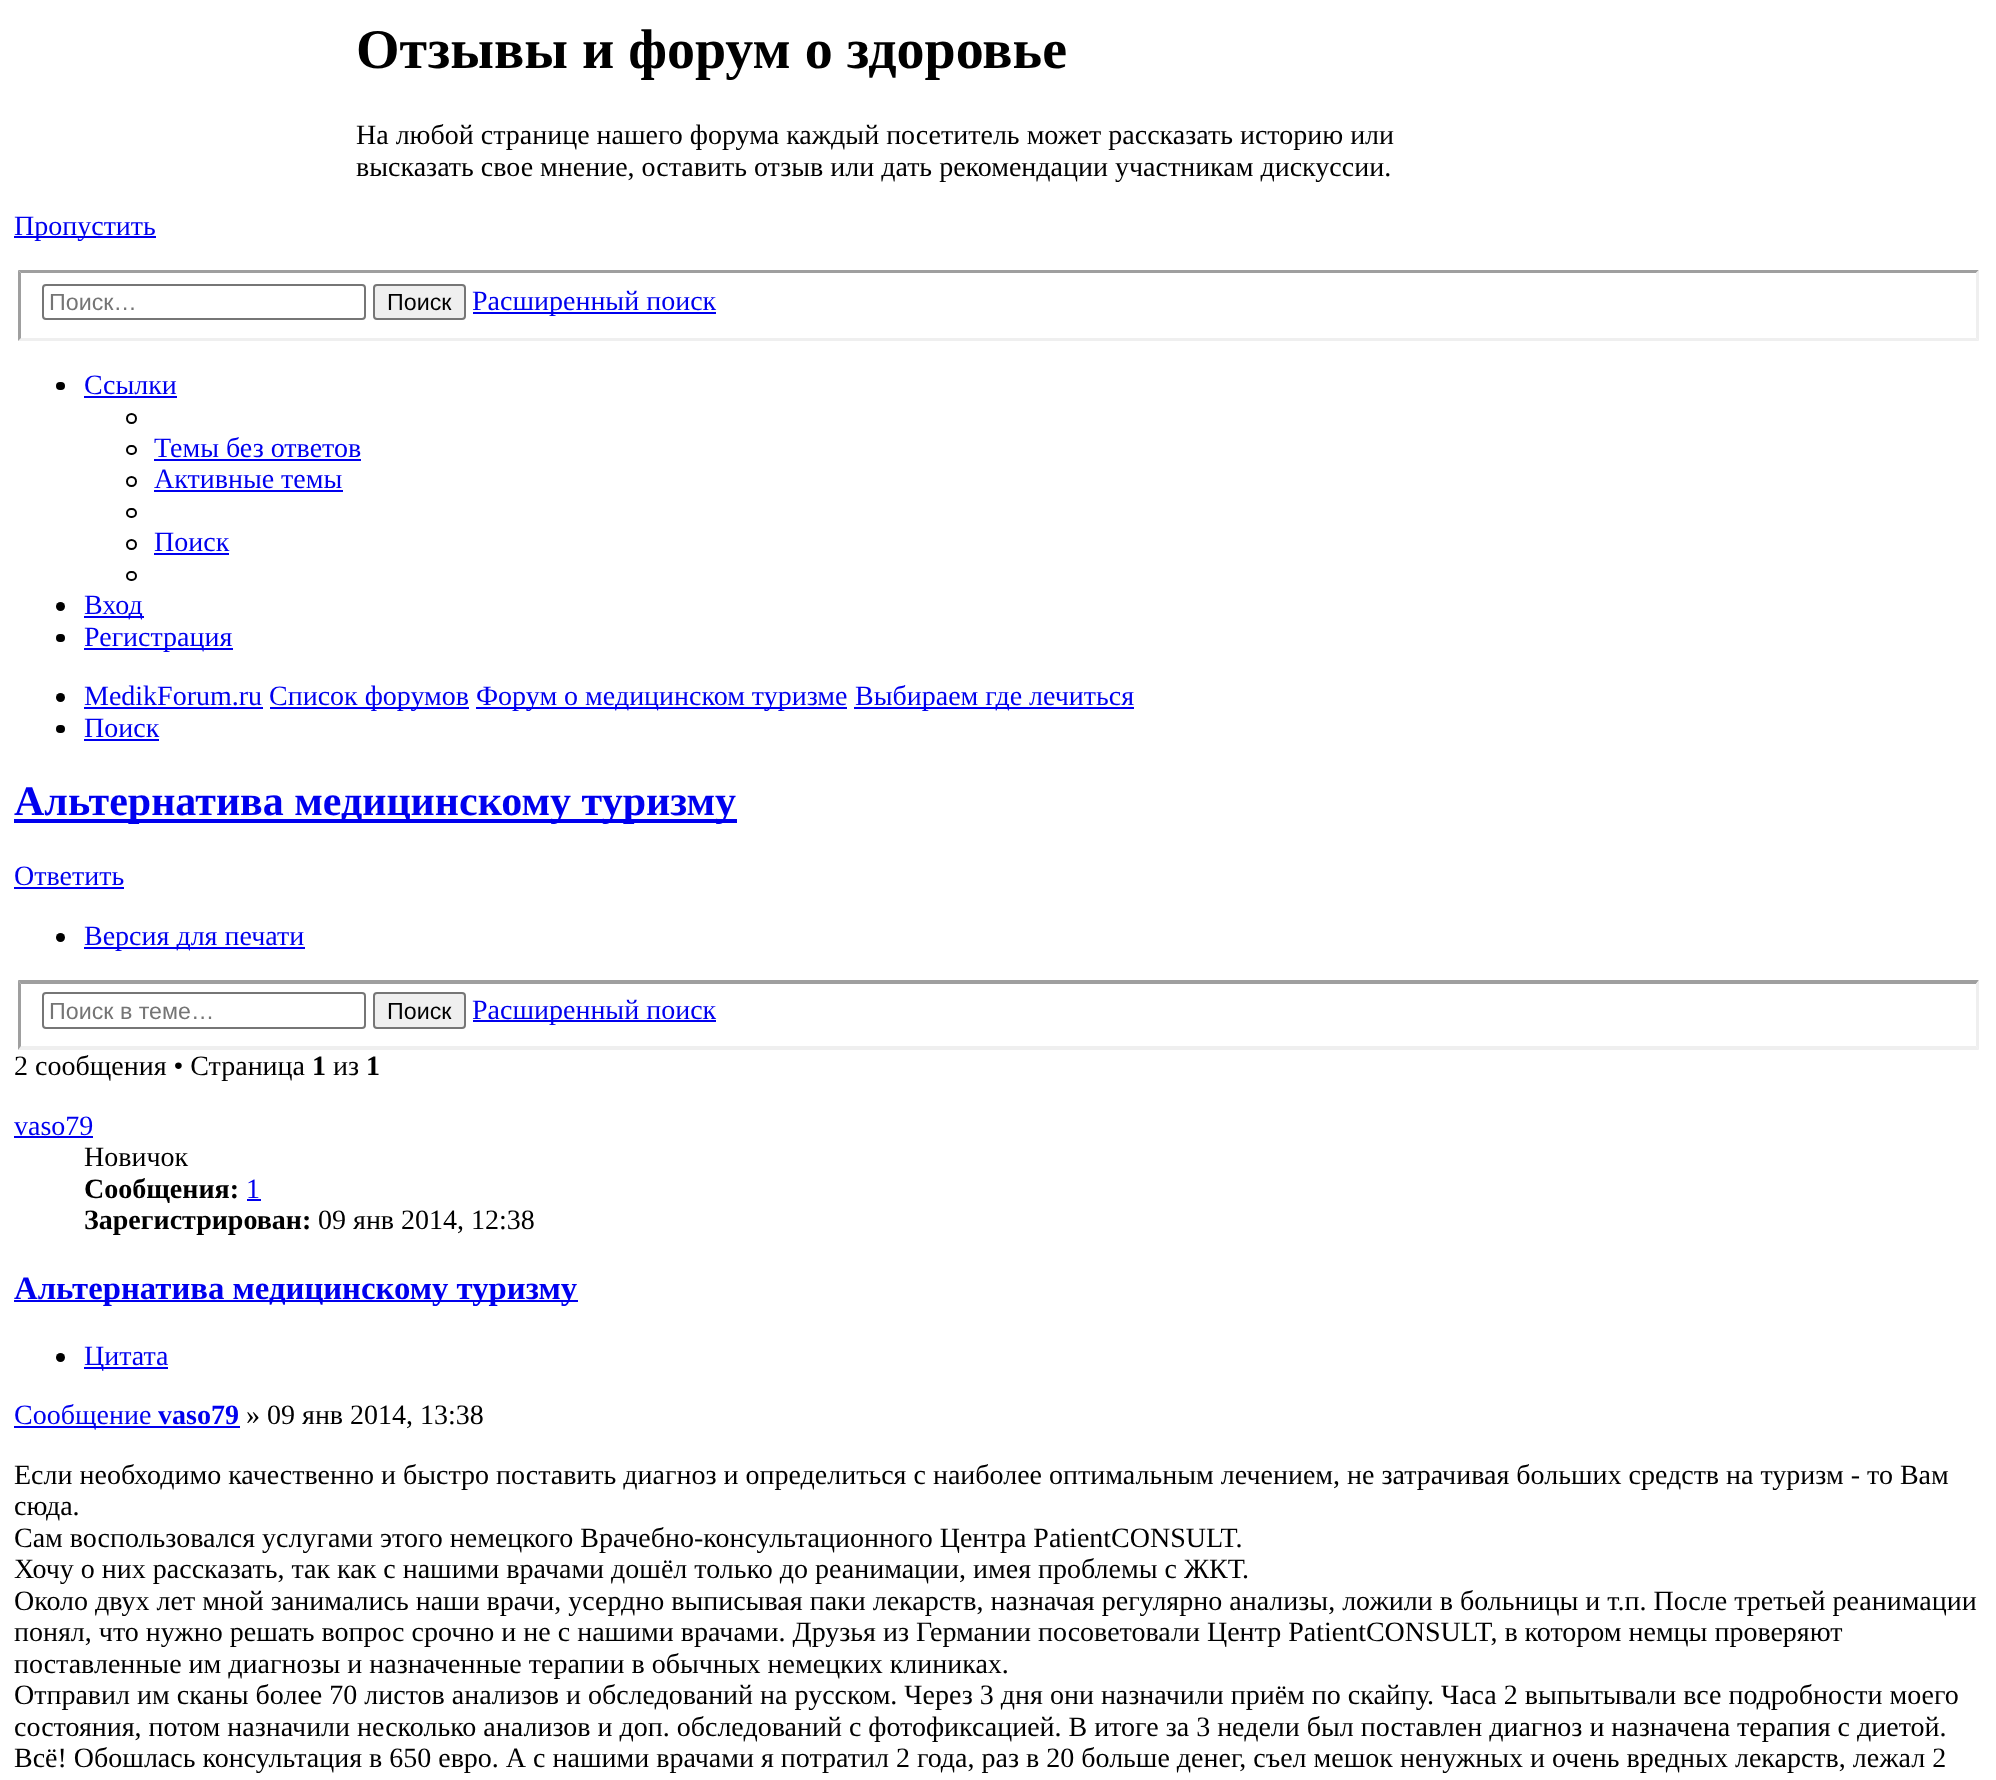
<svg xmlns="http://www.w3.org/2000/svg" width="1996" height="1780">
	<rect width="100%" height="100%" fill="#FFFFFF" />
	<text x="356" y="68" font-family="Liberation Serif" font-size="56" font-weight="700" fill="#000000">Отзывы и форум о здоровье</text>
	<g font-family="Liberation Serif" font-size="28" fill="#000000">
		<text x="356" y="144">На любой странице нашего форума каждый посетитель может рассказать историю или</text>
		<text x="356" y="176">высказать свое мнение, оставить отзыв или дать рекомендации участникам дискуссии.</text>
	</g>
	<rect x="14" y="236" width="142" height="2" fill="#0000EE" />
	<text x="14" y="235" font-family="Liberation Serif" font-size="28" fill="#0000EE">Пропустить</text>
	<path d="M18 270H1979L1976 273H21Z" fill="#9F9F9F" />
	<path d="M1979 270V341L1976 338V273Z" fill="#EFEFEF" />
	<path d="M1979 341H18L21 338H1976Z" fill="#EFEFEF" />
	<path d="M18 341V270L21 273V338Z" fill="#9F9F9F" />
	<rect x="43" y="285" width="322" height="34" rx="3" fill="none" stroke="#767676" stroke-width="2" />
	<text x="49" y="310" font-family="Liberation Sans" font-size="23.25" fill="#757575">Поиск…</text>
	<rect x="374" y="285" width="91" height="34" rx="3" fill="#EFEFEF" stroke="#767676" stroke-width="2" />
	<text x="387" y="310" font-family="Liberation Sans" font-size="23.25" fill="#000000">Поиск</text>
	<rect x="473" y="312" width="243" height="2" fill="#0000EE" />
	<text x="472" y="310" font-family="Liberation Serif" font-size="28" fill="#0000EE">Расширенный поиск</text>
	<rect x="56" y="382" width="9" height="8" rx="4" fill="#000000" />
	<text x="84" y="394" font-family="Liberation Serif" font-size="28" fill="#0000EE">Ссылки</text>
	<rect x="84" y="396" width="93" height="2" fill="#0000EE" />
	<circle cx="131.5" cy="418.5" r="4.5" fill="none" stroke="#000000" stroke-width="2" />
	<rect x="127" y="446" width="9" height="8" rx="4" fill="none" stroke="#000000" stroke-width="2" />
	<text x="154" y="457" font-family="Liberation Serif" font-size="28" fill="#0000EE">Темы без ответов</text>
	<rect x="154" y="459" width="207" height="2" fill="#0000EE" />
	<circle cx="131.5" cy="481.5" r="4.5" fill="none" stroke="#000000" stroke-width="2" />
	<text x="154" y="488" font-family="Liberation Serif" font-size="28" fill="#0000EE">Активные темы</text>
	<rect x="154" y="490" width="189" height="2" fill="#0000EE" />
	<rect x="127" y="509" width="9" height="8" rx="4" fill="none" stroke="#000000" stroke-width="2" />
	<circle cx="131.5" cy="544.5" r="4.5" fill="none" stroke="#000000" stroke-width="2" />
	<text x="154" y="551" font-family="Liberation Serif" font-size="28" fill="#0000EE">Поиск</text>
	<rect x="154" y="553" width="75" height="2" fill="#0000EE" />
	<rect x="127" y="572" width="9" height="8" rx="4" fill="none" stroke="#000000" stroke-width="2" />
	<circle cx="60.5" cy="606.5" r="4.5" fill="#000000" />
	<rect x="84" y="616" width="60" height="2" fill="#0000EE" />
	<text x="84" y="614" font-family="Liberation Serif" font-size="28" fill="#0000EE">Вход</text>
	<rect x="56" y="634" width="9" height="8" rx="4" fill="#000000" />
	<rect x="84" y="648" width="149" height="2" fill="#0000EE" />
	<text x="84" y="646" font-family="Liberation Serif" font-size="28" fill="#0000EE">Регистрация</text>
	<circle cx="60.5" cy="697.5" r="4.5" fill="#000000" />
	<text x="84" y="705" font-family="Liberation Serif" font-size="28" fill="#0000EE">MedikForum.ru</text>
	<rect x="84" y="707" width="179" height="2" fill="#0000EE" />
	<rect x="270" y="707" width="199" height="2" fill="#0000EE" />
	<text x="269" y="705" font-family="Liberation Serif" font-size="28" fill="#0000EE">Список форумов</text>
	<rect x="476" y="707" width="371" height="2" fill="#0000EE" />
	<text x="476" y="705" font-family="Liberation Serif" font-size="28" fill="#0000EE">Форум о медицинском туризме</text>
	<rect x="854" y="707" width="280" height="2" fill="#0000EE" />
	<text x="855" y="705" font-family="Liberation Serif" font-size="28" fill="#0000EE">Выбираем где лечиться</text>
	<rect x="56" y="725" width="9" height="8" rx="4" fill="#000000" />
	<text x="84" y="737" font-family="Liberation Serif" font-size="28" fill="#0000EE">Поиск</text>
	<rect x="84" y="739" width="75" height="2" fill="#0000EE" />
	<rect x="14" y="819" width="723" height="4" fill="#0000EE" />
	<text x="14" y="815" font-family="Liberation Serif" font-size="42" font-weight="700" fill="#0000EE">Альтернатива медицинскому туризму</text>
	<text x="14" y="885" font-family="Liberation Serif" font-size="28" fill="#0000EE">Ответить</text>
	<rect x="14" y="887" width="110" height="2" fill="#0000EE" />
	<circle cx="60.5" cy="937.5" r="4.5" fill="#000000" />
	<rect x="84" y="947" width="221" height="2" fill="#0000EE" />
	<text x="84" y="945" font-family="Liberation Serif" font-size="28" fill="#0000EE">Версия для печати</text>
	<path d="M18 980H1979L1976 984H21Z" fill="#9F9F9F" />
	<path d="M1979 980V1050L1976 1046V984Z" fill="#EFEFEF" />
	<path d="M1979 1050H18L21 1046H1976Z" fill="#EFEFEF" />
	<path d="M18 1050V980L21 984V1046Z" fill="#9F9F9F" />
	<rect x="43" y="993" width="322" height="35" rx="3" fill="none" stroke="#767676" stroke-width="2" />
	<text x="49" y="1019" font-family="Liberation Sans" font-size="23.25" fill="#757575">Поиск в теме…</text>
	<rect x="374" y="993" width="91" height="35" rx="3" fill="#EFEFEF" stroke="#767676" stroke-width="2" />
	<text x="387" y="1019" font-family="Liberation Sans" font-size="23.25" fill="#000000">Поиск</text>
	<rect x="473" y="1020" width="243" height="2" fill="#0000EE" />
	<text x="472" y="1019" font-family="Liberation Serif" font-size="28" fill="#0000EE">Расширенный поиск</text>
	<text x="14" y="1075" font-family="Liberation Serif" font-size="28" fill="#000000">2 сообщения • Страница</text>
	<text x="312" y="1075" font-family="Liberation Serif" font-size="28" font-weight="700" fill="#000000">1</text>
	<text x="333" y="1075" font-family="Liberation Serif" font-size="28" fill="#000000">из</text>
	<text x="366" y="1075" font-family="Liberation Serif" font-size="28" font-weight="700" fill="#000000">1</text>
	<text x="14" y="1135" font-family="Liberation Serif" font-size="28" fill="#0000EE">vaso79</text>
	<rect x="14" y="1136" width="79" height="2" fill="#0000EE" />
	<text x="84" y="1166" font-family="Liberation Serif" font-size="28" fill="#000000">Новичок</text>
	<text x="84" y="1198" font-family="Liberation Serif" font-size="28" font-weight="700" fill="#000000">Сообщения:</text>
	<text x="246" y="1198" font-family="Liberation Serif" font-size="28" fill="#0000EE">1</text>
	<rect x="247" y="1199" width="14" height="2" fill="#0000EE" />
	<text x="84" y="1229" font-family="Liberation Serif" font-size="28" font-weight="700" fill="#000000">Зарегистрирован:</text>
	<text x="318" y="1229" font-family="Liberation Serif" font-size="28" fill="#000000">09 янв 2014, 12:38</text>
	<rect x="14" y="1300" width="564" height="2" fill="#0000EE" />
	<text x="14" y="1299" font-family="Liberation Serif" font-size="32.75" font-weight="700" fill="#0000EE">Альтернатива медицинскому туризму</text>
	<circle cx="60.5" cy="1357.5" r="4.5" fill="#000000" />
	<rect x="84" y="1367" width="84" height="2" fill="#0000EE" />
	<text x="84" y="1365" font-family="Liberation Serif" font-size="28" fill="#0000EE">Цитата</text>
	<rect x="14" y="1426" width="226" height="2" fill="#0000EE" />
	<text x="14" y="1424" font-family="Liberation Serif" font-size="28" fill="#0000EE">Сообщение</text>
	<text x="158" y="1424" font-family="Liberation Serif" font-size="28" font-weight="700" fill="#0000EE">vaso79</text>
	<g font-family="Liberation Serif" font-size="28" fill="#000000">
		<text x="246" y="1424">» 09 янв 2014, 13:38</text>
		<text x="14" y="1484">Если необходимо качественно и быстро поставить диагноз и определиться с наиболее оптимальным лечением, не затрачивая больших средств на туризм - то Вам</text>
		<text x="14" y="1515">сюда.</text>
		<text x="14" y="1547">Сам воспользовался услугами этого немецкого Врачебно-консультационного Центра PatientCONSULT.</text>
		<text x="14" y="1578">Хочу о них рассказать, так как с нашими врачами дошёл только до реанимации, имея проблемы с ЖКТ.</text>
		<text x="14" y="1610">Около двух лет мной занимались наши врачи, усердно выписывая паки лекарств, назначая регулярно анализы, ложили в больницы и т.п. После третьей реанимации</text>
		<text x="14" y="1641">понял, что нужно решать вопрос срочно и не с нашими врачами. Друзья из Германии посоветовали Центр PatientCONSULT, в котором немцы проверяют</text>
		<text x="14" y="1673">поставленные им диагнозы и назначенные терапии в обычных немецких клиниках.</text>
		<text x="14" y="1704">Отправил им сканы более 70 листов анализов и обследований на русском. Через 3 дня они назначили приём по скайпу. Часа 2 выпытывали все подробности моего</text>
		<text x="14" y="1736">состояния, потом назначили несколько анализов и доп. обследований с фотофиксацией. В итоге за 3 недели был поставлен диагноз и назначена терапия с диетой.</text>
		<text x="14" y="1767">Всё! Обошлась консультация в 650 евро. А с нашими врачами я потратил 2 года, раз в 20 больше денег, съел мешок ненужных и очень вредных лекарств, лежал 2</text>
	</g>
</svg>
